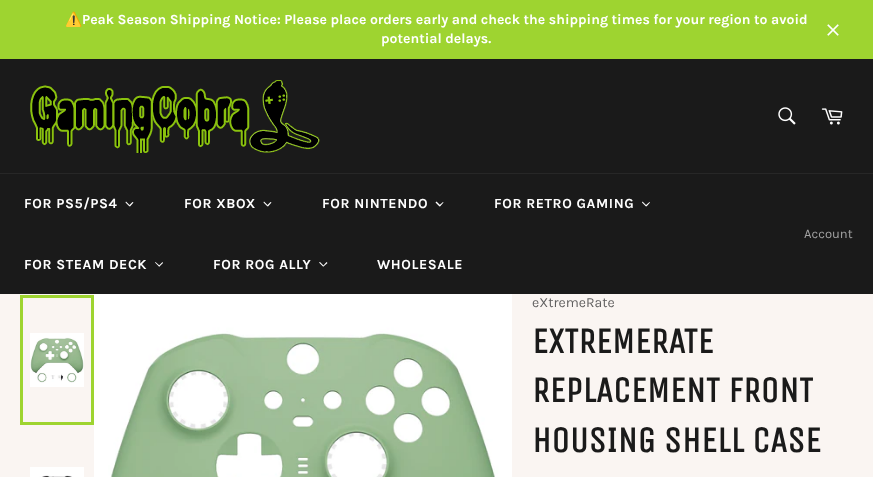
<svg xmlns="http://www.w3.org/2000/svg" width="873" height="477">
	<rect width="100%" height="100%" fill="#9ED430" />
	<text x="65" y="24" font-family="Noto Color Emoji" font-size="14" font-weight="700" fill="#FFFFFF">⚠️</text>
	<g font-family="Karla" font-size="14" font-weight="700" fill="#FFFFFF">
		<text x="82" y="24">Peak Season Shipping Notice: Please place orders early and check the shipping times for your region to avoid</text>
		<text x="381" y="43">potential delays.</text>
	</g>
	<image x="827" y="24" width="12" height="12" href="assets/img1.png" />
	<rect x="0" y="294" width="873" height="183" fill="#FAF5F2" />
	<rect x="0" y="59" width="873" height="114" fill="#1A1A1A" />
	<image x="30" y="80" width="290" height="73" href="assets/img2.png" />
	<image x="778" y="107" width="18" height="18" href="assets/img3.png" />
	<image x="821" y="108" width="22" height="17" href="assets/img4.png" />
	<rect x="0" y="174" width="873" height="120" fill="#1A1A1A" />
	<rect x="0" y="173" width="873" height="1" fill="#272727" />
	<text x="24" y="208" font-family="Karla" font-size="14" font-weight="700" letter-spacing="0.6" fill="#FFFFFF">FOR PS5/PS4</text>
	<path d="M132.5 202L133.5 202.5L130 206.5L129 205.5Z" fill="#FFFFFF" />
	<path d="M126 201.5L130 205.5L129.5 206.5L125.5 202.5Z" fill="#FFFFFF" />
	<text x="184" y="208" font-family="Karla" font-size="14" font-weight="700" letter-spacing="0.6" fill="#FFFFFF">FOR XBOX</text>
	<path d="M270.5 202L271.5 202.5L268 206.5L267 205.5Z" fill="#FFFFFF" />
	<path d="M264 201.5L268 205.5L267.5 206.5L263.5 202.5Z" fill="#FFFFFF" />
	<text x="322" y="208" font-family="Karla" font-size="14" font-weight="700" letter-spacing="0.6" fill="#FFFFFF">FOR NINTENDO</text>
	<path d="M443 202L443.5 202.5L440 206.5L439 205.5Z" fill="#FFFFFF" />
	<path d="M436.5 201.5L440.5 205.5L439.5 206.5L435.5 202.5Z" fill="#FFFFFF" />
	<text x="494" y="208" font-family="Karla" font-size="14" font-weight="700" letter-spacing="0.6" fill="#FFFFFF">FOR RETRO GAMING</text>
	<path d="M649.5 202L650 202.5L646.5 206.5L645.5 205.5Z" fill="#FFFFFF" />
	<path d="M642.5 201.5L646.5 205.5L646 206.5L642 202.5Z" fill="#FFFFFF" />
	<text x="24" y="269" font-family="Karla" font-size="14" font-weight="700" letter-spacing="0.6" fill="#FFFFFF">FOR STEAM DECK</text>
	<path d="M162.5 262L163 263L159.5 266.5L158.5 266Z" fill="#FFFFFF" />
	<path d="M155.5 262L160 266L159 266.5L155 262.5Z" fill="#FFFFFF" />
	<text x="213" y="269" font-family="Karla" font-size="14" font-weight="700" letter-spacing="0.6" fill="#FFFFFF">FOR ROG ALLY</text>
	<path d="M326.5 262L327.5 263L323.5 266.5L323 266Z" fill="#FFFFFF" />
	<path d="M320 262L324 266L323 266.5L319 262.5Z" fill="#FFFFFF" />
	<text x="377" y="269" font-family="Karla" font-size="14" font-weight="700" letter-spacing="0.6" fill="#FFFFFF">WHOLESALE</text>
	<text x="804" y="238" font-family="Karla" font-size="13" fill="#A3A3A3">Account</text>
	<image x="30" y="333" width="54" height="54" href="assets/img5.png" />
	<rect x="21.5" y="296.5" width="71" height="127" fill="none" stroke="#9ED430" stroke-width="3" />
	<image x="30" y="467" width="54" height="10" href="assets/img6.png" />
	<image x="94" y="294" width="418" height="183" href="assets/img7.png" />
	<text x="532" y="307" font-family="Karla" font-size="14" fill="#605F5F">eXtremeRate</text>
	<g font-family="Unica One" font-size="36" font-weight="700" fill="#1A1A1A">
		<text x="532" y="353">EXTREMERATE</text>
		<text x="532" y="402">REPLACEMENT FRONT</text>
		<text x="532" y="452">HOUSING SHELL CASE</text>
	</g>
</svg>
